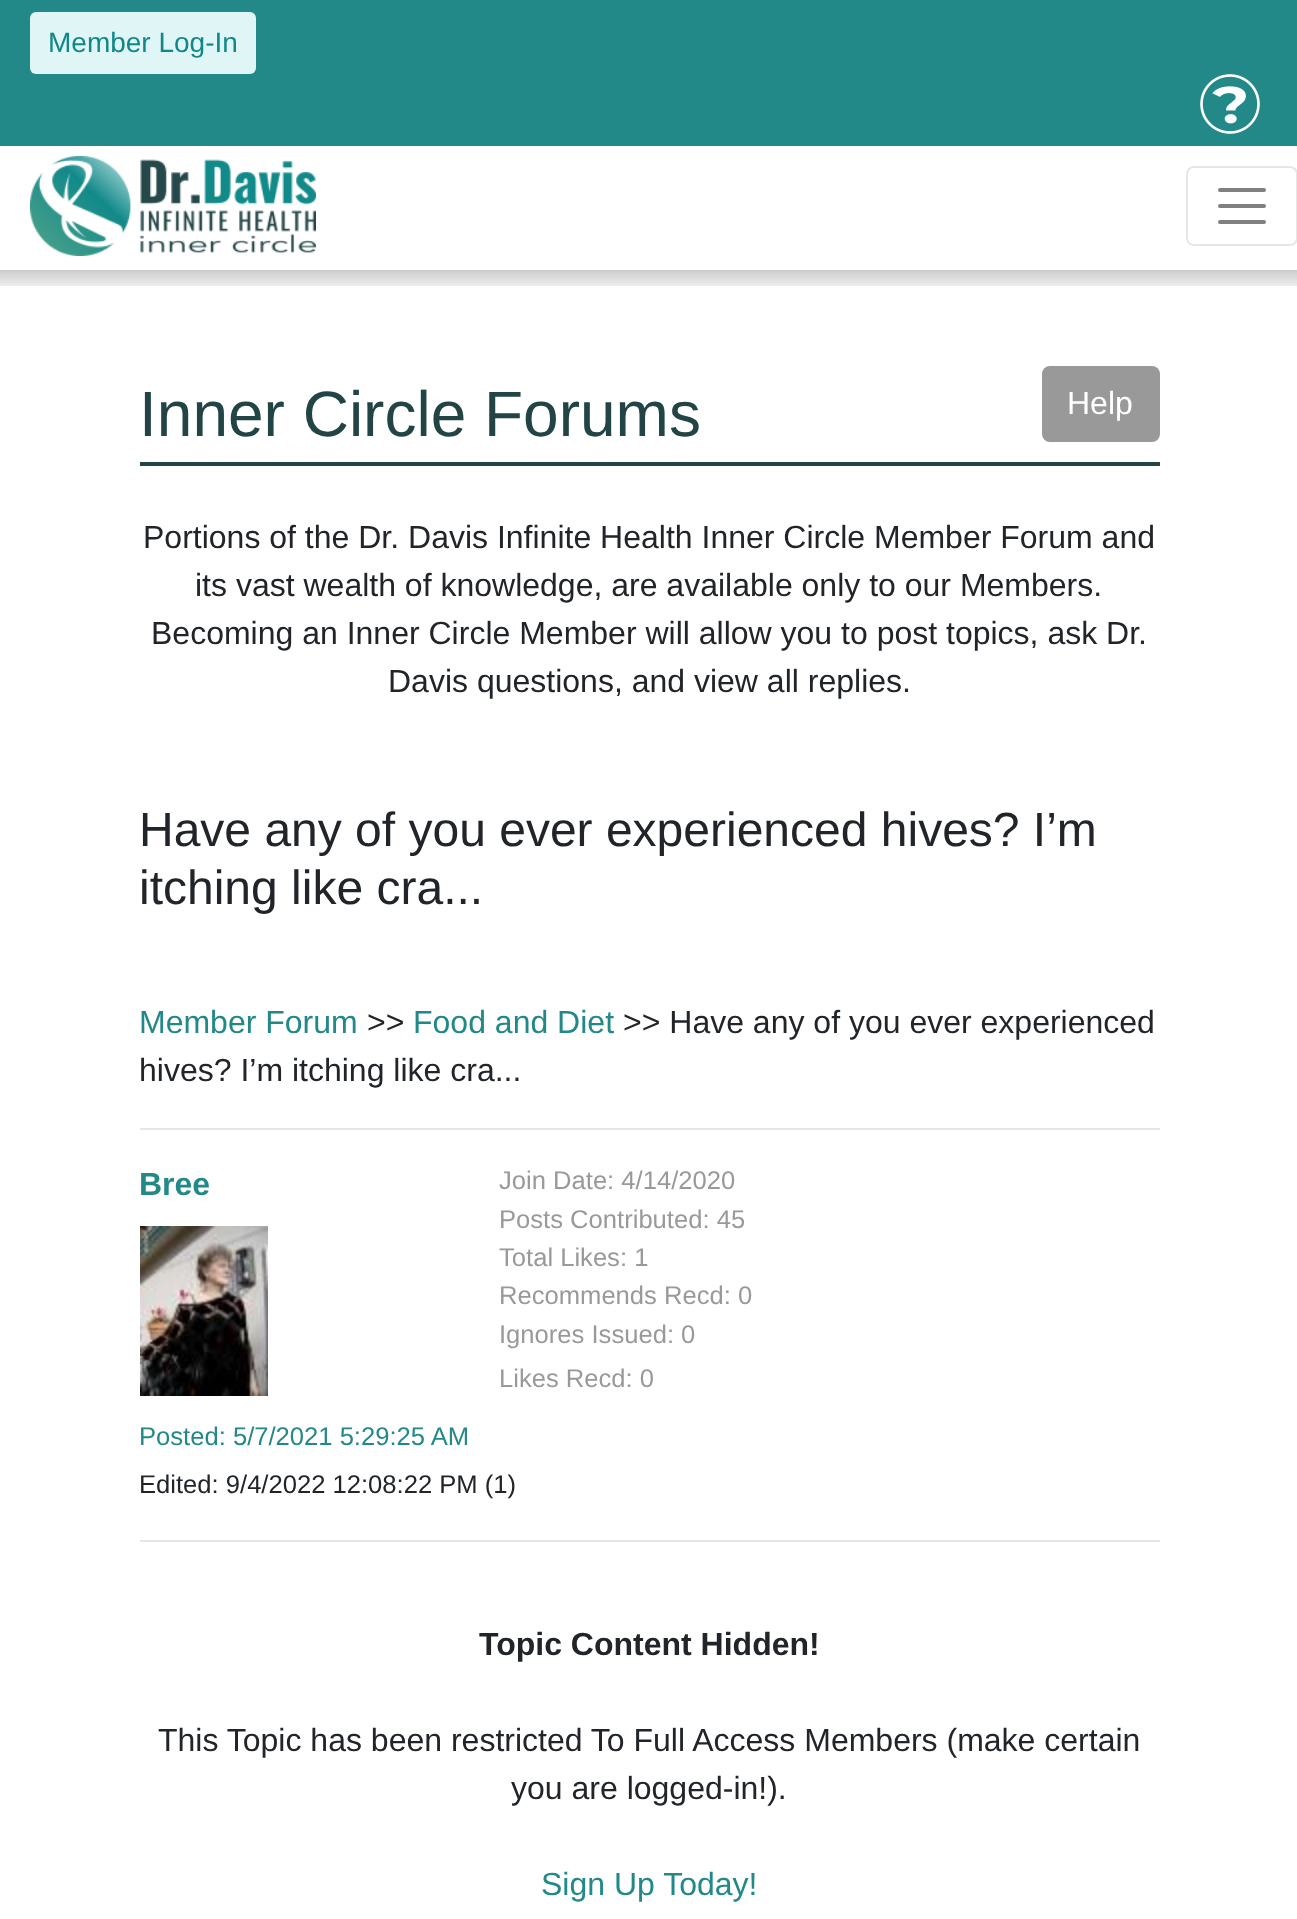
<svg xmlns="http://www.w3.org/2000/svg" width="1297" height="1919">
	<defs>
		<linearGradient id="g1" gradientUnits="userSpaceOnUse" x1="649" y1="270" x2="649" y2="286"><stop offset="0" stop-color="#CCCCCC" /><stop offset="1" stop-color="#EEEEEE" /></linearGradient>
	</defs>
	<rect width="100%" height="100%" fill="#FFFFFF" />
	<rect x="0" y="0" width="1297" height="146" fill="#228888" />
	<rect x="30" y="12" width="226" height="62" rx="6" fill="#E0F5F5" />
	<text x="48" y="52" font-family="Liberation Sans" font-size="28" fill="#118888">Member Log-In</text>
	<image x="1200" y="74" width="60" height="60" href="assets/img1.png" />
	<image x="30" y="156" width="286" height="100" href="assets/img2.png" />
	<rect x="1187" y="167" width="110" height="78" rx="7" fill="none" stroke="#E6E6E6" stroke-width="2" />
	<path d="M1220 190H1264M1220 206H1264M1220 222H1264" fill="none" stroke="#808080" stroke-width="4" stroke-linecap="round" />
	<rect x="0" y="270" width="1297" height="16" fill="url(#g1)" />
	<text x="139" y="436" font-family="Liberation Sans" font-size="64" fill="#224444">Inner Circle Forums</text>
	<rect x="1042" y="366" width="118" height="76" rx="8" fill="#999999" />
	<text x="1067" y="414" font-family="Liberation Sans" font-size="32" fill="#FFFFFF">Help</text>
	<rect x="140" y="462" width="1020" height="4" fill="#224444" />
	<g font-family="Liberation Sans" font-size="32" fill="#212529">
		<text x="143" y="548">Portions of the Dr. Davis Infinite Health Inner Circle Member Forum and</text>
		<text x="195" y="596">its vast wealth of knowledge, are available only to our Members.</text>
		<text x="151" y="644">Becoming an Inner Circle Member will allow you to post topics, ask Dr.</text>
		<text x="388" y="692">Davis questions, and view all replies.</text>
	</g>
	<g font-family="Liberation Sans" font-size="48" fill="#212529">
		<text x="139" y="846">Have any of you ever experienced hives? I’m</text>
		<text x="139" y="904">itching like cra...</text>
	</g>
	<text x="139" y="1033" font-family="Liberation Sans" font-size="32" fill="#228888">Member Forum</text>
	<text x="367" y="1033" font-family="Liberation Sans" font-size="32" fill="#212529">&gt;&gt;</text>
	<text x="413" y="1033" font-family="Liberation Sans" font-size="32" fill="#228888">Food and Diet</text>
	<g font-family="Liberation Sans" font-size="32" fill="#212529">
		<text x="623" y="1033">&gt;&gt; Have any of you ever experienced</text>
		<text x="139" y="1081">hives? I’m itching like cra...</text>
	</g>
	<rect x="140" y="1128" width="1020" height="2" fill="#E6E6E6" />
	<text x="139" y="1195" font-family="Liberation Sans" font-size="32" font-weight="700" fill="#228888">Bree</text>
	<image x="140" y="1226" width="128" height="170" href="assets/img3.png" />
	<g font-family="Liberation Sans" font-size="25.6" fill="#999999">
		<text x="499" y="1189">Join Date: 4/14/2020</text>
		<text x="499" y="1228">Posts Contributed: 45</text>
		<text x="499" y="1266">Total Likes: 1</text>
		<text x="499" y="1304">Recommends Recd: 0</text>
		<text x="499" y="1343">Ignores Issued: 0</text>
		<text x="499" y="1387">Likes Recd: 0</text>
	</g>
	<text x="139" y="1445" font-family="Liberation Sans" font-size="25.6" fill="#228888">Posted: 5/7/2021 5:29:25 AM</text>
	<text x="139" y="1493" font-family="Liberation Sans" font-size="25.6" fill="#212529">Edited: 9/4/2022 12:08:22 PM (1)</text>
	<rect x="140" y="1540" width="1020" height="2" fill="#E6E6E6" />
	<text x="479" y="1655" font-family="Liberation Sans" font-size="32" font-weight="700" fill="#212529">Topic Content Hidden!</text>
	<g font-family="Liberation Sans" font-size="32" fill="#212529">
		<text x="158" y="1751">This Topic has been restricted To Full Access Members (make certain</text>
		<text x="511" y="1799">you are logged-in!).</text>
	</g>
	<text x="541" y="1895" font-family="Liberation Sans" font-size="32" fill="#228888">Sign Up Today!</text>
</svg>
